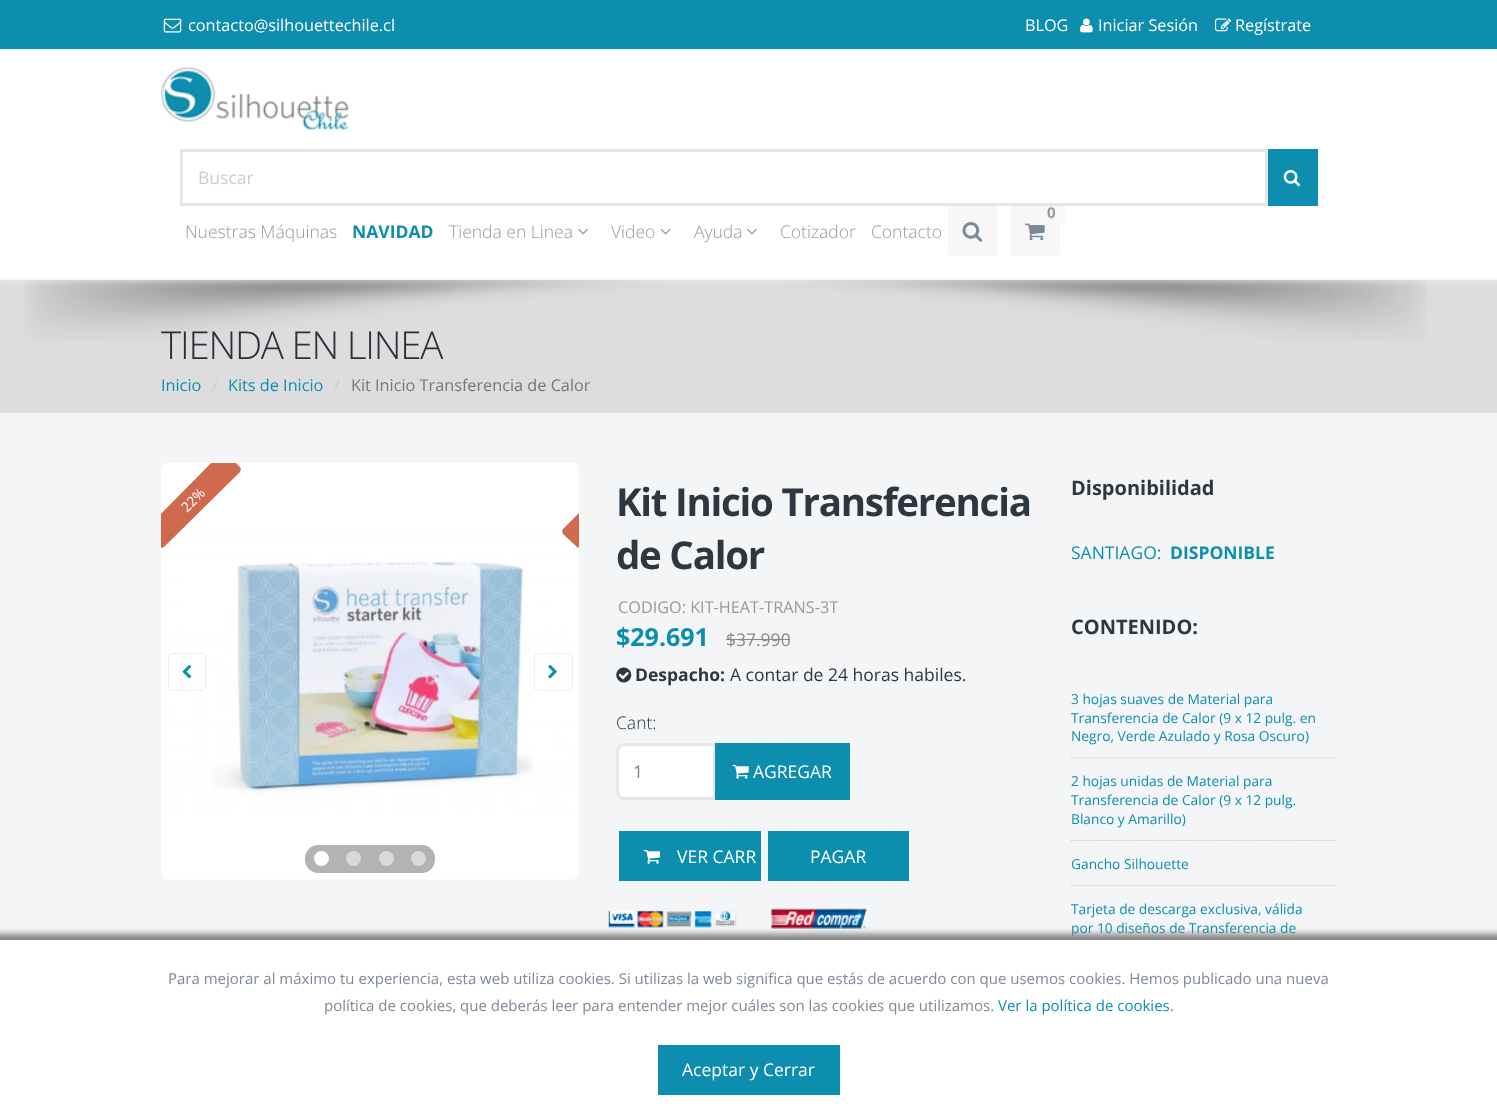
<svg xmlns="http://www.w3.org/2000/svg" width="1497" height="1119">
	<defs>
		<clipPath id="clip1"><rect x="161" y="463" width="418" height="417" /></clipPath>
	</defs>
	<rect width="100%" height="100%" fill="#F4F5F7" />
	<rect x="0" y="280" width="1497" height="133" fill="#DDDDDD" />
	<text x="161" y="359" font-family="Open Sans" font-size="38.5" font-weight="300" letter-spacing="-1.25" fill="#2D2F3C">TIENDA EN LINEA</text>
	<image x="24" y="280" width="1403" height="61" href="assets/img11.png" />
	<rect x="0" y="50" width="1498" height="230" fill="#EEEEEE" filter="blur(5px)" />
	<rect x="0" y="0" width="1497" height="49" fill="#0D8EAE" />
	<rect x="0" y="49" width="1497" height="1" fill="#EEEEEE" />
	<image x="163" y="18" width="19" height="15" href="assets/img1.png" />
	<g font-family="Open Sans" font-size="16.25" fill="#FFFFFF">
		<text x="188" y="31">contacto@silhouettechile.cl</text>
		<text x="1025" y="31">BLOG</text>
	</g>
	<image x="1080" y="18" width="13" height="15" href="assets/img2.png" />
	<text x="1098" y="31" font-family="Open Sans" font-size="16.25" fill="#FFFFFF">Iniciar Sesión</text>
	<image x="1215" y="18" width="17" height="14" href="assets/img3.png" />
	<text x="1235" y="31" font-family="Open Sans" font-size="16.25" fill="#FFFFFF">Regístrate</text>
	<rect x="0" y="50" width="1497" height="229" fill="#FFFFFF" />
	<rect x="0" y="279" width="1497" height="1" fill="#F4F5F7" />
	<image x="161" y="67" width="188" height="63" href="assets/img4.png" />
	<rect x="1010" y="206" width="50" height="50" rx="5" fill="#F7F7F7" />
	<image x="1025" y="223" width="20" height="18" href="assets/img7.png" />
	<rect x="1039" y="201" width="26" height="23" rx="4" fill="#F8F8F8" />
	<rect x="1040" y="201" width="24" height="2" fill="#FFFFFF" />
	<rect x="181.5" y="150.5" width="1085" height="54" fill="none" stroke="#E6E6E6" stroke-width="3" />
	<text x="198" y="184" font-family="Open Sans" font-size="17.5" fill="#CCCCCC">Buscar</text>
	<rect x="1268" y="149" width="50" height="57" fill="#0D8EAE" />
	<image x="1283" y="170" width="17" height="17" href="assets/img5.png" />
	<rect x="948" y="206" width="50" height="50" rx="5" fill="#F7F7F7" />
	<image x="962" y="222" width="21" height="20" href="assets/img6.png" />
	<text x="1047" y="218" font-family="Open Sans" font-size="15" font-weight="700" fill="#999999">0</text>
	<text x="185" y="238" font-family="Open Sans" font-size="17.5" font-weight="300" fill="#999999">Nuestras Máquinas</text>
	<text x="352" y="238" font-family="Open Sans" font-size="17.5" font-weight="700" fill="#0D8EAE">NAVIDAD</text>
	<text x="449" y="238" font-family="Open Sans" font-size="17.5" font-weight="300" fill="#999999">Tienda en Linea</text>
	<image x="578" y="229" width="10" height="6" href="assets/img8.png" />
	<text x="611" y="238" font-family="Open Sans" font-size="17.5" font-weight="300" fill="#999999">Video</text>
	<image x="660" y="229" width="11" height="6" href="assets/img9.png" />
	<text x="694" y="238" font-family="Open Sans" font-size="17.5" font-weight="300" fill="#999999">Ayuda</text>
	<image x="747" y="229" width="10" height="6" href="assets/img10.png" />
	<g font-family="Open Sans" font-size="17.5" font-weight="300" fill="#999999">
		<text x="780" y="238">Cotizador</text>
		<text x="871" y="238">Contacto</text>
	</g>
	<text x="161" y="391" font-family="Open Sans" font-size="16.25" fill="#0D8EAE">Inicio</text>
	<text x="212" y="391" font-family="Open Sans" font-size="16.25" fill="#CCCCCC">/</text>
	<text x="228" y="391" font-family="Open Sans" font-size="16.25" fill="#0D8EAE">Kits de Inicio</text>
	<text x="334" y="391" font-family="Open Sans" font-size="16.25" fill="#CCCCCC">/</text>
	<text x="351" y="391" font-family="Open Sans" font-size="16.25" fill="#777777">Kit Inicio Transferencia de Calor</text>
	<image x="161" y="462" width="418" height="418" href="assets/img12.png" />
	<g clip-path="url(#clip1)">
		<path d="M146 529L221 453C223 452 225 452 226 453L240 467C241 468 241 470 240 472L164 547C163 548 161 548 159 547L146 534C144 532 144 530 146 529Z" fill="#D06A4E" />
	</g>
	<text x="187" y="513" transform="rotate(-45 187 513)" font-family="Open Sans" font-size="13.75" fill="#FFFFFF">22%</text>
	<g clip-path="url(#clip1)">
		<path d="M563 529L639 453C640 452 642 452 644 453L657 467C659 468 659 470 657 472L582 547C580 548 578 548 577 547L563 534C562 532 562 530 563 529Z" fill="#D06A4E" />
	</g>
	<rect x="168.5" y="653.5" width="37" height="37" rx="3.5" fill="none" stroke="#EEEEEE" />
	<image x="182" y="664" width="10" height="15" href="assets/img13.png" />
	<rect x="534.5" y="653.5" width="38" height="37" rx="3.5" fill="none" stroke="#EEEEEE" />
	<image x="548" y="664" width="9" height="15" href="assets/img14.png" />
	<path d="M318 845H338V873H318C311 873 305 867 305 860V858C305 851 311 845 318 845Z" fill="#B3B3B3" />
	<circle cx="321.5" cy="858.5" r="7.5" fill="#FFFFFF" />
	<rect x="338" y="845" width="65" height="28" fill="#B3B3B3" />
	<circle cx="353.5" cy="858.5" r="7.5" fill="#D9D9D9" />
	<path d="M403 845H422C429 845 435 851 435 858V860C435 867 429 873 422 873H403Z" fill="#B3B3B3" />
	<circle cx="418.5" cy="858.5" r="7.5" fill="#D9D9D9" />
	<circle cx="386.5" cy="858.5" r="7.5" fill="#D9D9D9" />
	<g font-family="Open Sans" font-size="38.5" font-weight="700" letter-spacing="-1.25" fill="#2E363F">
		<text x="616" y="516">Kit Inicio Transferencia</text>
		<text x="616" y="569">de Calor</text>
	</g>
	<text x="618" y="613" font-family="Open Sans" font-size="16.25" fill="#999999">CODIGO: KIT-HEAT-TRANS-3T</text>
	<text x="616" y="646" font-family="Open Sans" font-size="25" font-weight="700" fill="#0D8EAE">$29.691</text>
	<text x="726" y="646" font-family="Open Sans" font-size="17.5" fill="#888888">$37.990</text>
	<rect x="726" y="639" width="64" height="1" fill="#888888" />
	<image x="616" y="667" width="16" height="16" href="assets/img15.png" />
	<text x="635" y="681" font-family="Open Sans" font-size="17.5" font-weight="700" fill="#2E363F">Despacho:</text>
	<text x="730" y="681" font-family="Open Sans" font-size="17.5" fill="#2E363F">A contar de 24 horas habiles.</text>
	<text x="616" y="729" font-family="Open Sans" font-size="17.5" font-weight="300" fill="#2E363F">Cant:</text>
	<path d="M624 744.5H714.5V798.5H624C620.5 798.5 617.5 795.5 617.5 792V751C617.5 747.5 620.5 744.5 624 744.5Z" fill="#FFFFFF" stroke="#E6E6E6" stroke-width="3" />
	<text x="633" y="778" font-family="Open Sans" font-size="17.5" fill="#808080">1</text>
	<rect x="715" y="743" width="135" height="57" fill="#0D8EAE" />
	<image x="732" y="765" width="17" height="14" href="assets/img16.png" />
	<text x="753" y="778" font-family="Open Sans" font-size="17.5" fill="#FFFFFF">AGREGAR</text>
	<rect x="619" y="831" width="142" height="50" fill="#0D8EAE" />
	<image x="643" y="850" width="17" height="14" href="assets/img17.png" />
	<text x="677" y="863" font-family="Open Sans" font-size="17.5" fill="#FFFFFF">VER CARR</text>
	<rect x="768" y="831" width="141" height="50" fill="#0D8EAE" />
	<text x="810" y="863" font-family="Open Sans" font-size="17.5" fill="#FFFFFF">PAGAR</text>
	<image x="608" y="908" width="259" height="21" href="assets/img18.png" />
	<text x="1071" y="495" font-family="Open Sans" font-size="20" font-weight="700" fill="#2E363F">Disponibilidad</text>
	<text x="1071" y="559" font-family="Open Sans" font-size="17.5" fill="#0D8EAE">SANTIAGO:</text>
	<text x="1170" y="559" font-family="Open Sans" font-size="17.5" font-weight="700" fill="#0D8EAE">DISPONIBLE</text>
	<text x="1071" y="634" font-family="Open Sans" font-size="20" font-weight="700" fill="#2E363F">CONTENIDO:</text>
	<path d="M1071 758H1336" fill="none" stroke="#CCCCCC" stroke-width="1.2" stroke-dasharray="1.25 1.25" />
	<g font-family="Open Sans" font-size="13.75" fill="#0D8EAE">
		<text x="1071" y="704">3 hojas suaves de Material para</text>
		<text x="1071" y="723">Transferencia de Calor (9 x 12 pulg. en</text>
		<text x="1071" y="741">Negro, Verde Azulado y Rosa Oscuro)</text>
	</g>
	<path d="M1071 840.5H1336" fill="none" stroke="#CCCCCC" stroke-width="1.2" stroke-dasharray="1.25 1.25" />
	<g font-family="Open Sans" font-size="13.75" fill="#0D8EAE">
		<text x="1071" y="786">2 hojas unidas de Material para</text>
		<text x="1071" y="805">Transferencia de Calor (9 x 12 pulg.</text>
		<text x="1071" y="824">Blanco y Amarillo)</text>
	</g>
	<path d="M1071 885.5H1336" fill="none" stroke="#CCCCCC" stroke-width="1.2" stroke-dasharray="1.25 1.25" />
	<g font-family="Open Sans" font-size="13.75" fill="#0D8EAE">
		<text x="1071" y="869">Gancho Silhouette</text>
		<text x="1071" y="914">Tarjeta de descarga exclusiva, válida</text>
		<text x="1071" y="933">por 10 diseños de Transferencia de</text>
	</g>
	<rect x="-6" y="934" width="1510" height="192" fill="#808080" filter="blur(3px)" />
	<rect x="0" y="940" width="1497" height="179" fill="#FFFFFF" />
	<g font-family="Open Sans" font-size="15" fill="#7E8998">
		<text x="168" y="984">Para mejorar al máximo tu experiencia, esta web utiliza cookies. Si utilizas la web significa que estás de acuerdo con que usemos cookies. Hemos publicado una nueva</text>
		<text x="324" y="1011">política de cookies, que deberás leer para entender mejor cuáles son las cookies que utilizamos.</text>
	</g>
	<text x="998" y="1011" font-family="Open Sans" font-size="15" fill="#0D8EAE">Ver la política de cookies</text>
	<text x="1170" y="1011" font-family="Open Sans" font-size="15" fill="#7E8998">.</text>
	<rect x="658" y="1045" width="182" height="50" fill="#0D8EAE" />
	<text x="682" y="1076" font-family="Open Sans" font-size="17.5" fill="#FFFFFF">Aceptar y Cerrar</text>
</svg>
